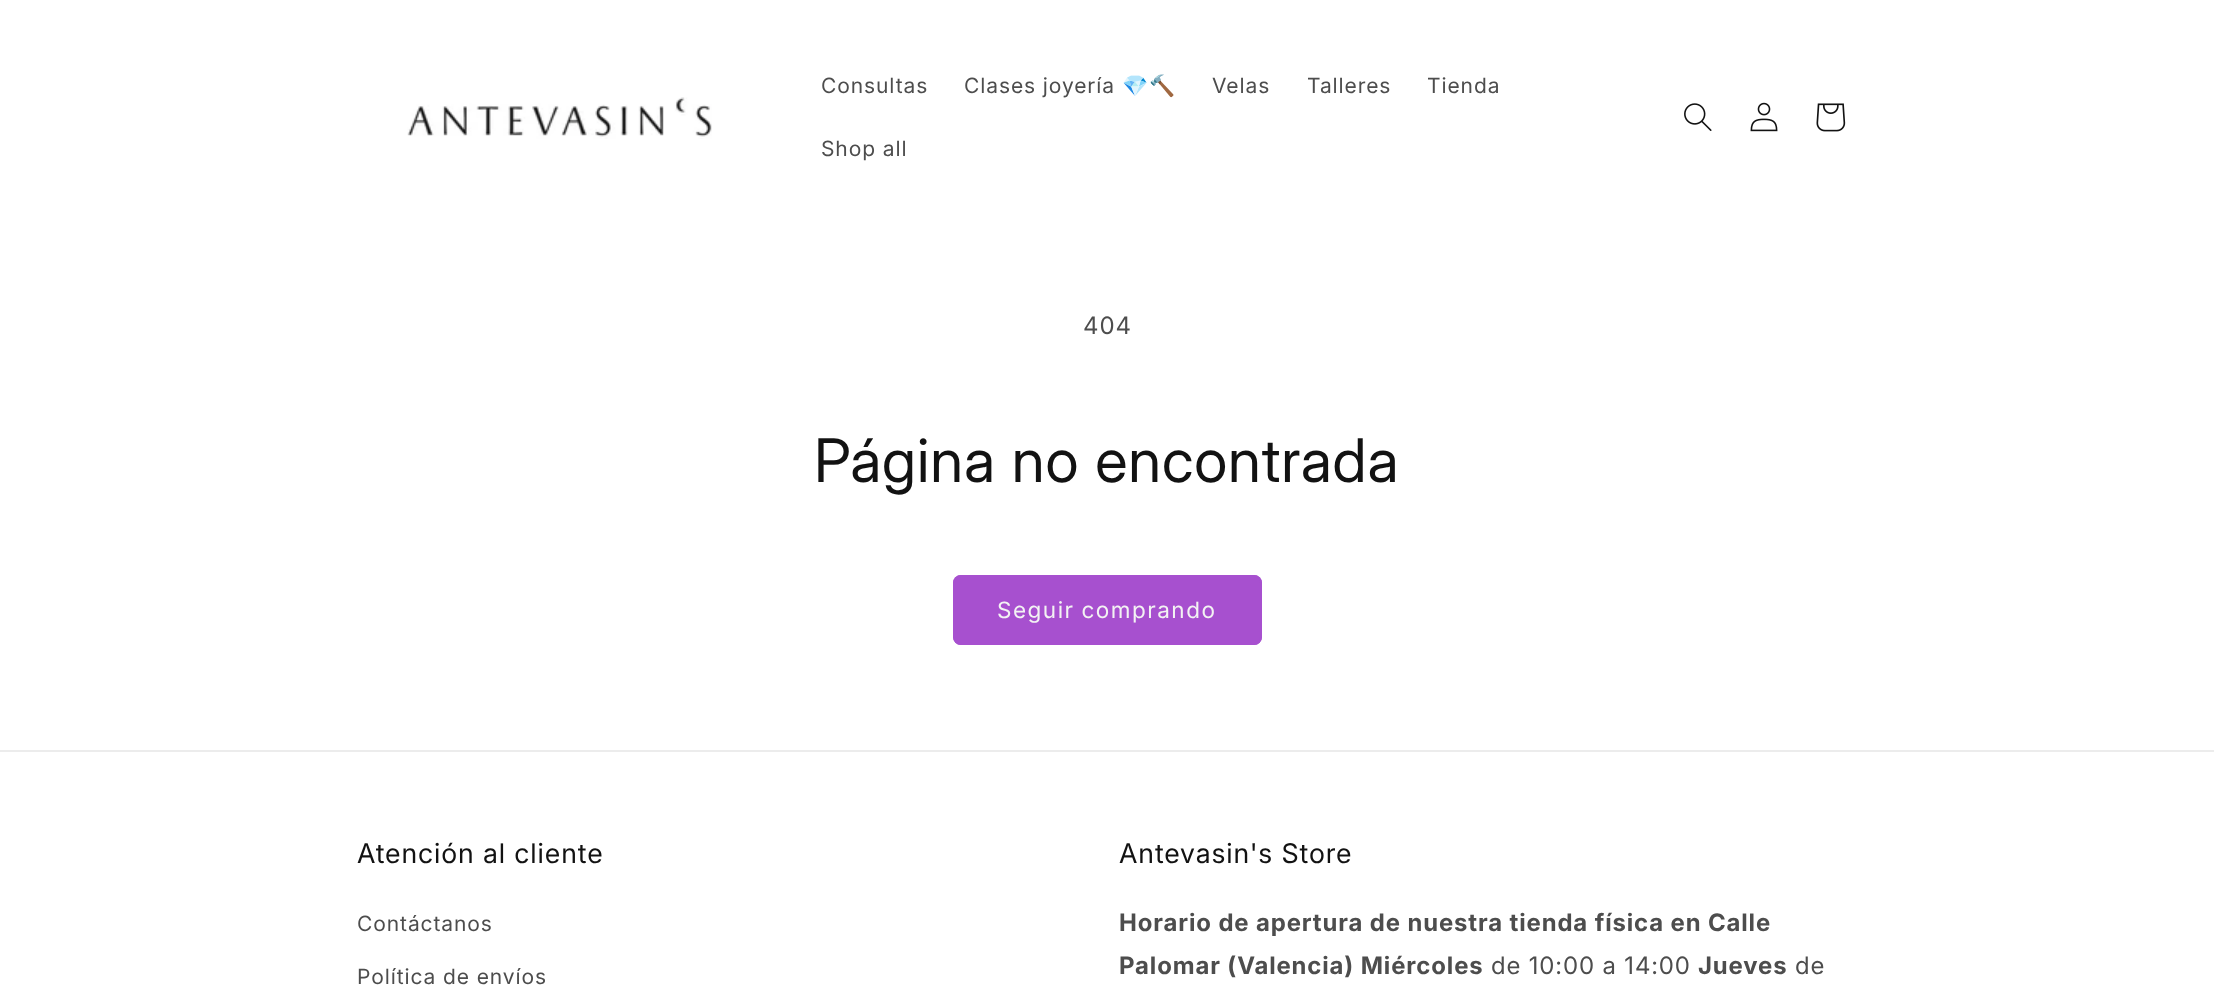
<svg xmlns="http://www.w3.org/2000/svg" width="2214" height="991">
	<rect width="100%" height="100%" fill="#FFFFFF" />
	<image x="407" y="97" width="305" height="42" href="assets/img1.png" />
	<g font-family="Inter" font-size="21" letter-spacing="0.9" fill="#4D4D4D">
		<text x="821" y="93">Consultas</text>
		<text x="964" y="93">Clases joyería</text>
	</g>
	<text x="1122" y="93" font-family="Noto Color Emoji" font-size="21" letter-spacing="0.9" fill="#4D4D4D">💎🔨</text>
	<g font-family="Inter" font-size="21" letter-spacing="0.9" fill="#4D4D4D">
		<text x="1212" y="93">Velas</text>
		<text x="1307" y="93">Talleres</text>
		<text x="1427" y="93">Tienda</text>
		<text x="821" y="156">Shop all</text>
	</g>
	<image x="1684" y="103" width="28" height="28" href="assets/img2.png" />
	<image x="1750" y="102" width="28" height="30" href="assets/img3.png" />
	<image x="1816" y="103" width="30" height="29" href="assets/img4.png" />
	<text x="1083" y="334" font-family="Inter" font-size="24" letter-spacing="0.9" fill="#4D4D4D">404</text>
	<text x="814" y="482" font-family="'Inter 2'" font-size="60" letter-spacing="0.9" fill="#121212">Página no encontrada</text>
	<rect x="953" y="575" width="309" height="70" rx="8" fill="#A750CF" />
	<rect x="954" y="576" width="307" height="68" rx="7" fill="none" stroke="#A750CF" stroke-width="2" />
	<text x="997" y="618" word-spacing="-1" font-family="Inter" font-size="22.5" letter-spacing="1.5" fill="#F3F3F3">Seguir comprando</text>
	<rect x="0" y="750" width="2214" height="2" fill="#ECECEC" />
	<text x="357" y="863" font-family="'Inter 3'" font-size="27" letter-spacing="0.9" fill="#121212">Atención al cliente</text>
	<g font-family="Inter" font-size="21" letter-spacing="0.9" fill="#4D4D4D">
		<text x="357" y="931">Contáctanos</text>
		<text x="357" y="984">Política de envíos</text>
	</g>
	<text x="1119" y="863" font-family="'Inter 3'" font-size="27" letter-spacing="0.9" fill="#121212">Antevasin's Store</text>
	<g font-family="Inter" font-size="24" font-weight="700" letter-spacing="0.9" fill="#4D4D4D">
		<text x="1119" y="931">Horario de apertura de nuestra tienda física en Calle</text>
		<text x="1119" y="974">Palomar (Valencia) Miércoles</text>
	</g>
	<text x="1491" y="974" font-family="'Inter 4'" font-size="24" letter-spacing="0.9" fill="#4D4D4D">de 10:00 a 14:00</text>
	<text x="1698" y="974" font-family="Inter" font-size="24" font-weight="700" letter-spacing="0.9" fill="#4D4D4D">Jueves</text>
	<text x="1795" y="974" font-family="'Inter 4'" font-size="24" letter-spacing="0.9" fill="#4D4D4D">de</text>
</svg>
